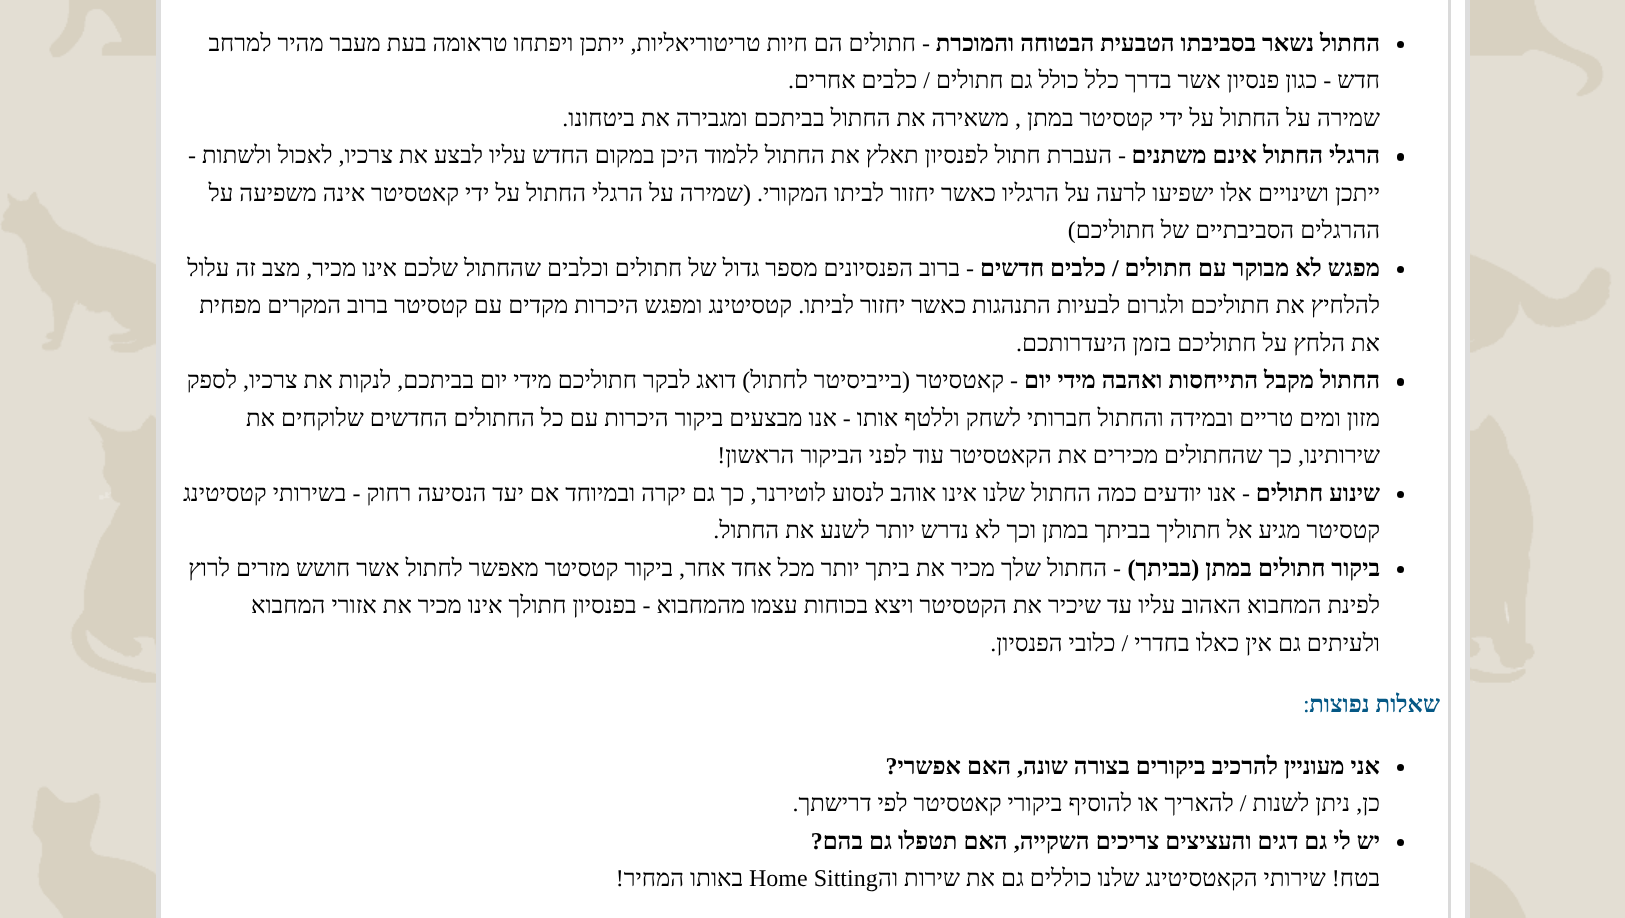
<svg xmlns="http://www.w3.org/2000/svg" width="1625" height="918">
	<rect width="100%" height="100%" fill="#FFFFFF" />
	<image x="0" y="0" width="1625" height="918" href="assets/img1.png" />
	<rect x="158.5" y="-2.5" width="1309" height="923" fill="#FFFFFF" stroke="#DDDDDD" stroke-width="5" />
	<rect x="1448" y="0" width="3" height="918" fill="#DADADA" />
	<circle cx="1400.5" cy="44.5" r="3.5" fill="#000000" />
	<text x="1380" y="51" font-family="Liberation Serif" font-size="24" font-weight="700" direction="rtl" fill="#000000">החתול נשאר בסביבתו הטבעית הבטוחה והמוכרת</text>
	<g font-family="Liberation Serif" font-size="24" direction="rtl" fill="#000000">
		<text x="930" y="51">- חתולים הם חיות טריטוריאליות, ייתכן ויפתחו טראומה בעת מעבר מהיר למרחב</text>
		<text x="1380" y="88">חדש - כגון פנסיון אשר בדרך כלל כולל גם חתולים / כלבים אחרים.</text>
		<text x="1380" y="126">שמירה על החתול על ידי קטסיטר במתן , משאירה את החתול בביתכם ומגבירה את ביטחונו.</text>
	</g>
	<rect x="1397" y="153" width="7" height="8" rx="3.5" fill="#000000" />
	<text x="1380" y="163" font-family="Liberation Serif" font-size="24" font-weight="700" direction="rtl" fill="#000000">הרגלי החתול אינם משתנים</text>
	<g font-family="Liberation Serif" font-size="24" direction="rtl" fill="#000000">
		<text x="1126" y="163">- העברת חתול לפנסיון תאלץ את החתול ללמוד היכן במקום החדש עליו לבצע את צרכיו, לאכול ולשתות -</text>
		<text x="1380" y="201">ייתכן ושינויים אלו ישפיעו לרעה על הרגליו כאשר יחזור לביתו המקורי. (שמירה על הרגלי החתול על ידי קאטסיטר אינה משפיעה על</text>
		<text x="1380" y="238">ההרגלים הסביבתיים של חתוליכם)</text>
	</g>
	<circle cx="1400.5" cy="269.5" r="3.5" fill="#000000" />
	<text x="1380" y="276" font-family="Liberation Serif" font-size="24" font-weight="700" direction="rtl" fill="#000000">מפגש לא מבוקר עם חתולים / כלבים חדשים</text>
	<g font-family="Liberation Serif" font-size="24" direction="rtl" fill="#000000">
		<text x="974" y="276">- ברוב הפנסיונים מספר גדול של חתולים וכלבים שהחתול שלכם אינו מכיר, מצב זה עלול</text>
		<text x="1380" y="313">להלחיץ את חתוליכם ולגרום לבעיות התנהגות כאשר יחזור לביתו. קטסיטינג ומפגש היכרות מקדים עם קטסיטר ברוב המקרים מפחית</text>
		<text x="1380" y="351">את הלחץ על חתוליכם בזמן היעדרותכם.</text>
	</g>
	<rect x="1397" y="378" width="7" height="8" rx="3.5" fill="#000000" />
	<text x="1380" y="388" font-family="Liberation Serif" font-size="24" font-weight="700" direction="rtl" fill="#000000">החתול מקבל התייחסות ואהבה מידי יום</text>
	<g font-family="Liberation Serif" font-size="24" direction="rtl" fill="#000000">
		<text x="1018" y="388">- קאטסיטר (בייביסיטר לחתול) דואג לבקר חתוליכם מידי יום בביתכם, לנקות את צרכיו, לספק</text>
		<text x="1380" y="426">מזון ומים טריים ובמידה והחתול חברותי לשחק וללטף אותו - אנו מבצעים ביקור היכרות עם כל החתולים החדשים שלוקחים את</text>
		<text x="1380" y="463">שירותינו, כך שהחתולים מכירים את הקאטסיטר עוד לפני הביקור הראשון!</text>
	</g>
	<circle cx="1400.5" cy="494.5" r="3.5" fill="#000000" />
	<text x="1380" y="501" font-family="Liberation Serif" font-size="24" font-weight="700" direction="rtl" fill="#000000">שינוע חתולים</text>
	<g font-family="Liberation Serif" font-size="24" direction="rtl" fill="#000000">
		<text x="1250" y="501">- אנו יודעים כמה החתול שלנו אינו אוהב לנסוע לוטירנר, כך גם יקרה ובמיוחד אם יעד הנסיעה רחוק - בשירותי קטסיטינג</text>
		<text x="1380" y="538">קטסיטר מגיע אל חתוליך בביתך במתן וכך לא נדרש יותר לשנע את החתול.</text>
	</g>
	<circle cx="1400.5" cy="569.5" r="3.5" fill="#000000" />
	<text x="1380" y="576" font-family="Liberation Serif" font-size="24" font-weight="700" direction="rtl" fill="#000000">ביקור חתולים במתן (בביתך)</text>
	<g font-family="Liberation Serif" font-size="24" direction="rtl" fill="#000000">
		<text x="1121" y="576">- החתול שלך מכיר את ביתך יותר מכל אחד אחר, ביקור קטסיטר מאפשר לחתול אשר חושש מזרים לרוץ</text>
		<text x="1380" y="613">לפינת המחבוא האהוב עליו עד שיכיר את הקטסיטר ויצא בכוחות עצמו מהמחבוא - בפנסיון חתולך אינו מכיר את אזורי המחבוא</text>
		<text x="1380" y="651">ולעיתים גם אין כאלו בחדרי / כלובי הפנסיון.</text>
	</g>
	<text x="1440" y="712" font-family="Liberation Serif" font-size="24" font-weight="700" direction="rtl" fill="#055885">שאלות נפוצות</text>
	<text x="1303" y="712" font-family="Liberation Serif" font-size="24" fill="#055885">:</text>
	<circle cx="1400.5" cy="767.5" r="3.5" fill="#000000" />
	<text x="1380" y="774" font-family="Liberation Serif" font-size="24" font-weight="700" direction="rtl" fill="#000000">אני מעוניין להרכיב ביקורים בצורה שונה, האם אפשרי?</text>
	<text x="1380" y="811" font-family="Liberation Serif" font-size="24" direction="rtl" fill="#000000">כן, ניתן לשנות / להאריך או להוסיף ביקורי קאטסיטר לפי דרישתך.</text>
	<circle cx="1400.5" cy="842.5" r="3.5" fill="#000000" />
	<text x="1380" y="849" font-family="Liberation Serif" font-size="24" font-weight="700" direction="rtl" fill="#000000">יש לי גם דגים והעציצים צריכים השקייה, האם תטפלו גם בהם?</text>
	<text x="1380" y="886" font-family="Liberation Serif" font-size="24" direction="rtl" fill="#000000">בטח! שירותי הקאטסיטינג שלנו כוללים גם את שירות וה</text>
	<text x="749" y="886" font-family="Liberation Serif" font-size="24" fill="#000000">Home Sitting</text>
	<text x="743" y="886" font-family="Liberation Serif" font-size="24" direction="rtl" fill="#000000">באותו המחיר!</text>
</svg>
